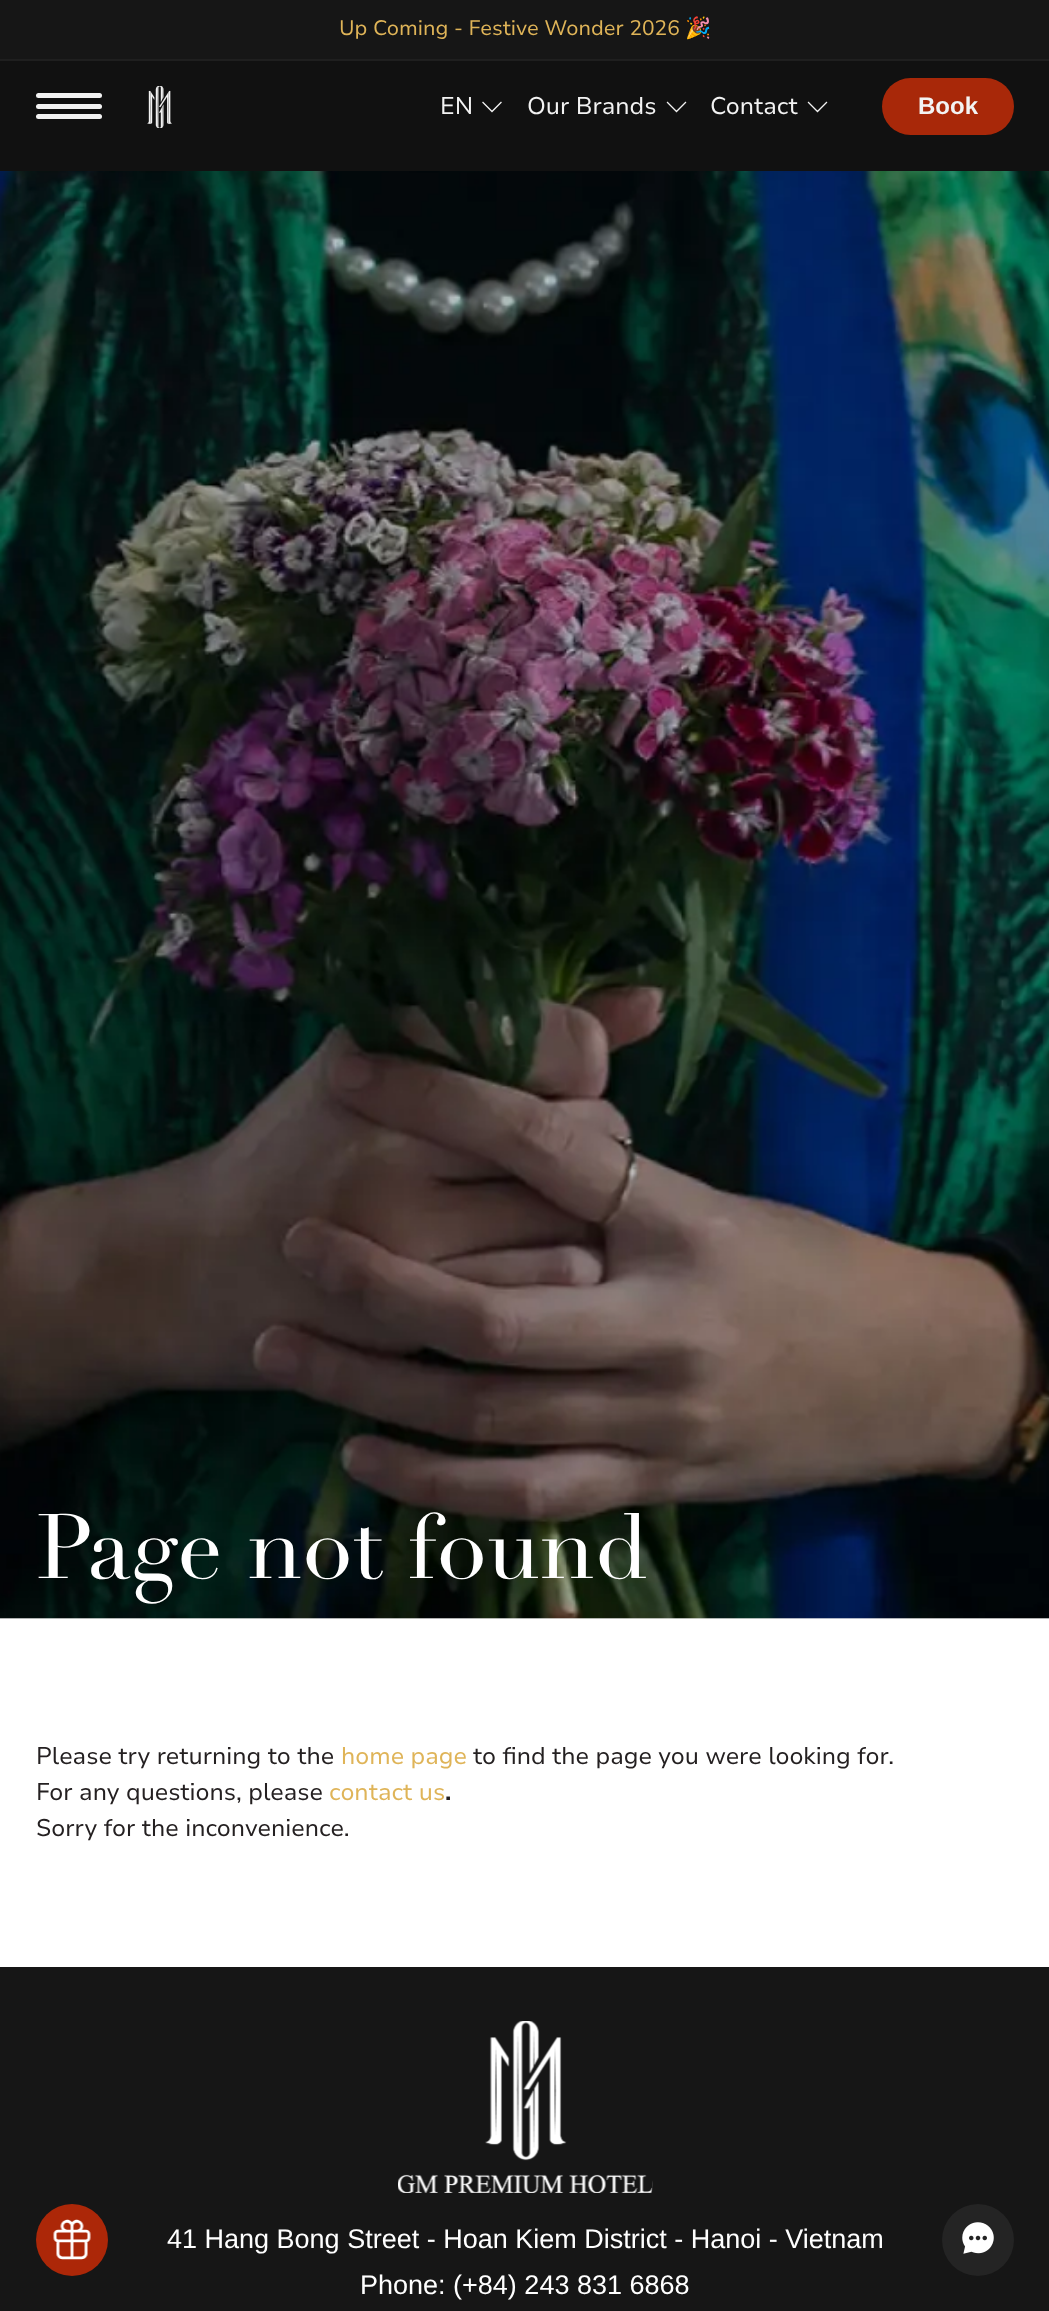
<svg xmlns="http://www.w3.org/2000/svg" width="1049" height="2311">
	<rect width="100%" height="100%" fill="#FFFFFF" />
	<rect x="0" y="61" width="1049" height="110" fill="#111111" />
	<rect x="0" y="0" width="1049" height="59" fill="#161616" />
	<rect x="0" y="59" width="1049" height="2" fill="#1F1F1F" />
	<text x="339" y="35" font-family="Nunito Sans" font-size="21" fill="#DFB458">Up Coming - Festive Wonder 2026</text>
	<text x="685" y="35" font-family="Noto Color Emoji" font-size="21" fill="#DFB458">🎉</text>
	<rect x="36" y="93" width="66" height="5" rx="2.5" fill="#F3F3F3" />
	<rect x="36" y="104" width="66" height="5" rx="2.5" fill="#F3F3F3" />
	<rect x="36" y="114" width="66" height="5" rx="2.5" fill="#F3F3F3" />
	<image x="147" y="86" width="25" height="42" href="assets/img1.png" />
	<text x="440" y="114" font-family="Nunito Sans" font-size="24" fill="#F3F3F3">EN</text>
	<path d="M483 102.5L492 111.5L501 102.5" fill="none" stroke="#F3F3F3" stroke-width="1.3" stroke-linecap="square" />
	<text x="527" y="114" font-family="Nunito Sans" font-size="24" fill="#F3F3F3">Our Brands</text>
	<path d="M667.5 102.5L676.5 111.5L685.5 102.5" fill="none" stroke="#F3F3F3" stroke-width="1.3" stroke-linecap="square" />
	<text x="710" y="114" font-family="Nunito Sans" font-size="24" fill="#F3F3F3">Contact</text>
	<path d="M808.5 102.5L817.5 111.5L826.5 102.5" fill="none" stroke="#F3F3F3" stroke-width="1.3" stroke-linecap="square" />
	<rect x="882" y="78" width="132" height="57" rx="28.5" fill="#A82809" />
	<text x="918" y="114" font-family="Liberation Sans" font-size="24" font-weight="700" fill="#F3F3F3">Book</text>
	<rect x="0" y="1618" width="1049" height="1" fill="#EBEBEB" />
	<image x="0" y="171" width="1049" height="1448" href="assets/img2.png" />
	<text x="36" y="1578" font-family="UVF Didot" font-size="90" fill="#FFFFFF">Page not found</text>
	<text x="36" y="1764" font-family="Nunito Sans" font-size="24" fill="#242021">Please try returning to the</text>
	<text x="341" y="1764" font-family="Nunito Sans" font-size="24" fill="#DFB458">home page</text>
	<g font-family="Nunito Sans" font-size="24" fill="#242021">
		<text x="473" y="1764">to find the page you were looking for.</text>
		<text x="36" y="1800">For any questions, please</text>
	</g>
	<text x="329" y="1800" font-family="Nunito Sans" font-size="24" fill="#DFB458">contact us</text>
	<text x="445" y="1800" font-family="Nunito Sans" font-size="24" font-weight="700" fill="#242021">.</text>
	<text x="36" y="1836" font-family="Nunito Sans" font-size="24" fill="#242021">Sorry for the inconvenience.</text>
	<rect x="0" y="1967" width="1049" height="344" fill="#161616" />
	<circle cx="72" cy="2240" r="36" fill="#AC2708" />
	<image x="53" y="2219" width="38" height="41" href="assets/img3.png" />
	<image x="398" y="2021" width="255" height="172" href="assets/img4.png" />
	<g font-family="Liberation Sans" font-size="27" fill="#FFFFFF">
		<text x="167" y="2248">41 Hang Bong Street - Hoan Kiem District - Hanoi - Vietnam</text>
		<text x="360" y="2294">Phone: (+84) 243 831 6868</text>
	</g>
	<circle cx="978" cy="2240" r="36" fill="#242424" />
	<image x="962" y="2222" width="32" height="32" href="assets/img5.png" />
</svg>
